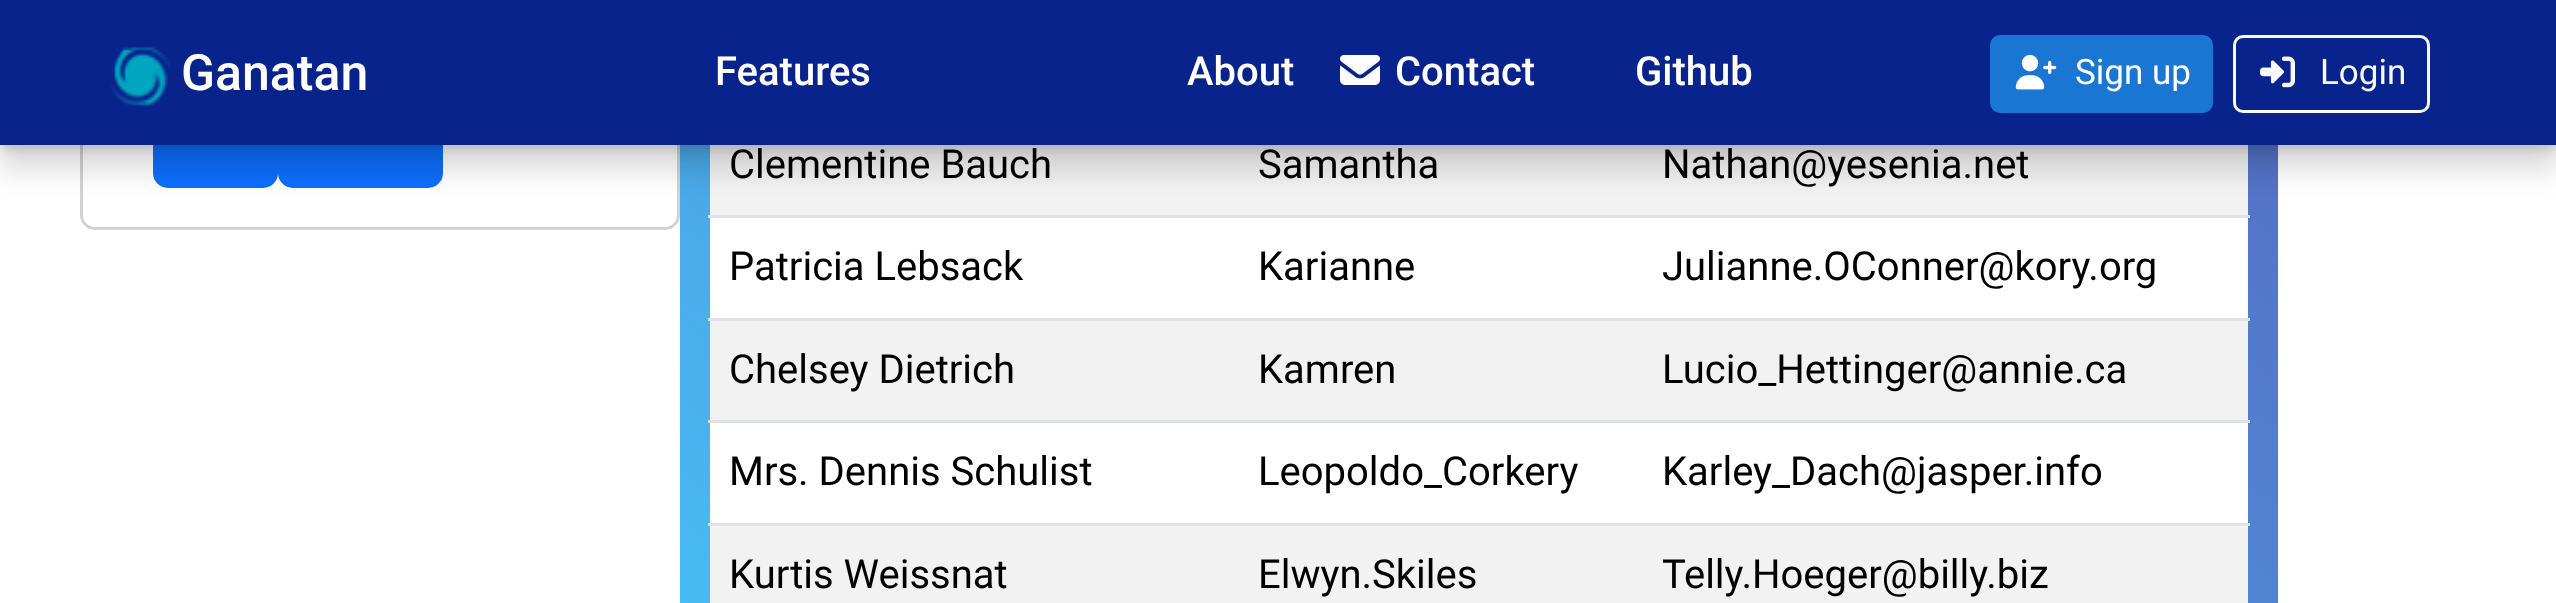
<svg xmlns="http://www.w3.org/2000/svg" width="2556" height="603">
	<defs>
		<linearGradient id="g1" gradientUnits="userSpaceOnUse" x1="861" y1="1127" x2="2096" y2="-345"><stop offset="0" stop-color="#45CAFC" /><stop offset="1" stop-color="#5664BD" /></linearGradient>
	</defs>
	<rect width="100%" height="100%" fill="#FFFFFF" />
	<rect x="81.5" y="-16.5" width="597" height="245" rx="13.5" fill="none" stroke="#D2D2D2" stroke-width="3" />
	<rect x="154.5" y="94.5" width="122" height="92" rx="13.5" fill="#0D6EFD" stroke="#0D6EFD" stroke-width="3" />
	<rect x="279.5" y="94.5" width="162" height="92" rx="13.5" fill="#0D6EFD" stroke="#0D6EFD" stroke-width="3" />
	<rect x="680" y="145" width="1598" height="458" fill="url(#g1)" />
	<rect x="710" y="145" width="1538" height="70" fill="#F2F2F2" />
	<rect x="0" y="28" width="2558" height="145" fill="#000000" fill-opacity="0.12" filter="blur(12.5px)" />
	<rect x="0" y="5" width="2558" height="145" fill="#000000" fill-opacity="0.16" filter="blur(6px)" />
	<rect x="0" y="0" width="2556" height="145" fill="#09238D" />
	<image x="110" y="46" width="61" height="60" href="assets/img1.png" />
	<text x="181" y="90" font-family="Roboto" font-size="50" font-weight="500" fill="#FFFFFF">Ganatan</text>
	<g font-family="Roboto" font-size="40" font-weight="500" fill="#FFFFFF">
		<text x="715" y="85">Features</text>
		<text x="1187" y="85">About</text>
	</g>
	<image x="1340" y="55" width="40" height="30" href="assets/img2.png" />
	<g font-family="Roboto" font-size="40" font-weight="500" fill="#FFFFFF">
		<text x="1395" y="85">Contact</text>
		<text x="1635" y="85">Github</text>
	</g>
	<rect x="1991.5" y="36.5" width="220" height="75" rx="8.5" fill="#1976D2" stroke="#1976D2" stroke-width="3" />
	<image x="2015" y="54" width="42" height="36" href="assets/img3.png" />
	<text x="2075" y="84" font-family="Roboto" font-size="35" fill="#FFFFFF">Sign up</text>
	<rect x="2234.5" y="36.5" width="194" height="75" rx="8.5" fill="none" stroke="#F8F9FA" stroke-width="3" />
	<image x="2260" y="56" width="35" height="32" href="assets/img4.png" />
	<text x="2320" y="84" font-family="Roboto" font-size="35" fill="#F8F9FA">Login</text>
	<g font-family="Roboto" font-size="40" fill="#000000">
		<text x="729" y="178">Clementine Bauch</text>
		<text x="1258" y="178">Samantha</text>
	</g>
	<rect x="708" y="215" width="1542" height="3" fill="#DEE2E6" />
	<text x="1662" y="178" font-family="Roboto" font-size="40" fill="#000000">Nathan@yesenia.net</text>
	<rect x="710" y="218" width="1538" height="100" fill="#FFFFFF" />
	<g font-family="Roboto" font-size="40" fill="#000000">
		<text x="729" y="280">Patricia Lebsack</text>
		<text x="1258" y="280">Karianne</text>
	</g>
	<rect x="708" y="318" width="1542" height="3" fill="#DEE2E6" />
	<text x="1662" y="280" font-family="Roboto" font-size="40" fill="#000000">Julianne.OConner@kory.org</text>
	<rect x="710" y="321" width="1538" height="99" fill="#F2F2F2" />
	<g font-family="Roboto" font-size="40" fill="#000000">
		<text x="729" y="383">Chelsey Dietrich</text>
		<text x="1258" y="383">Kamren</text>
	</g>
	<rect x="708" y="420" width="1542" height="3" fill="#DEE2E6" />
	<text x="1662" y="383" font-family="Roboto" font-size="40" fill="#000000">Lucio_Hettinger@annie.ca</text>
	<rect x="710" y="423" width="1538" height="100" fill="#FFFFFF" />
	<g font-family="Roboto" font-size="40" fill="#000000">
		<text x="729" y="485">Mrs. Dennis Schulist</text>
		<text x="1258" y="485">Leopoldo_Corkery</text>
	</g>
	<rect x="708" y="523" width="1542" height="3" fill="#DEE2E6" />
	<text x="1662" y="485" font-family="Roboto" font-size="40" fill="#000000">Karley_Dach@jasper.info</text>
	<rect x="710" y="526" width="1538" height="77" fill="#F2F2F2" />
	<g font-family="Roboto" font-size="40" fill="#000000">
		<text x="729" y="588">Kurtis Weissnat</text>
		<text x="1258" y="588">Elwyn.Skiles</text>
		<text x="1662" y="588">Telly.Hoeger@billy.biz</text>
	</g>
</svg>
